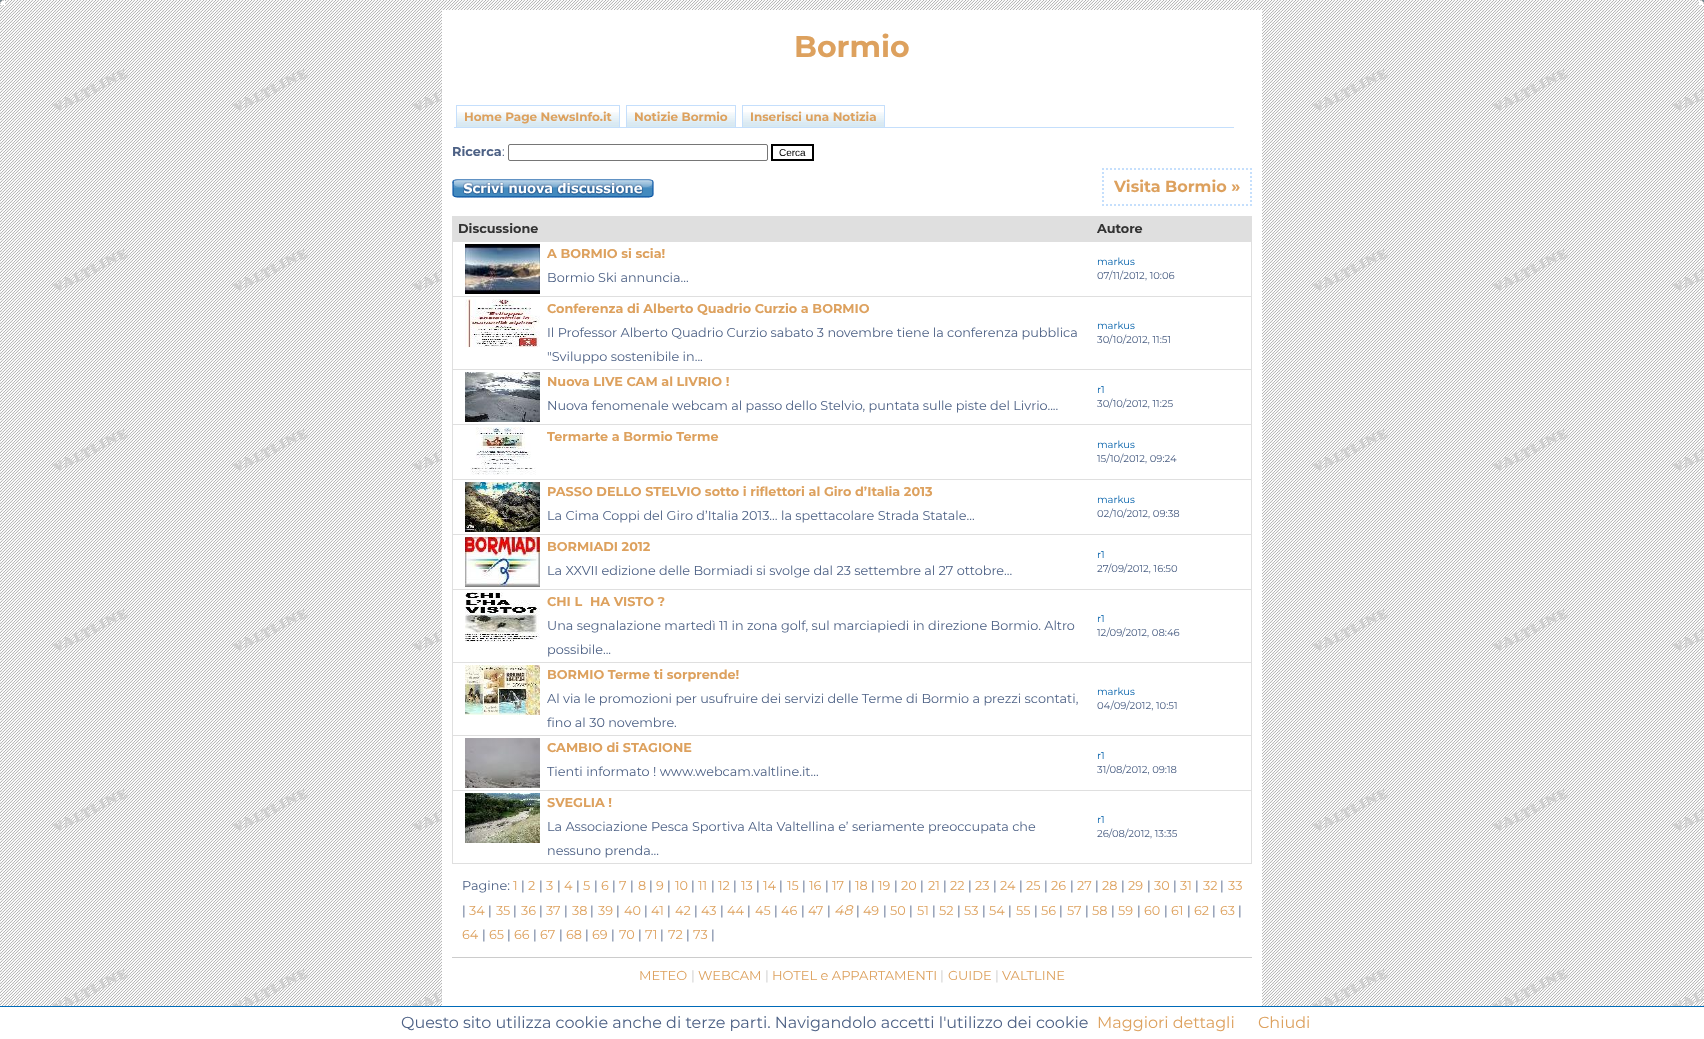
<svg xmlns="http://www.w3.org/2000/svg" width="1704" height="1039">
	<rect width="100%" height="100%" fill="#FFFFFF" />
	<image x="0" y="0" width="1704" height="1006" href="assets/img1.png" />
	<rect x="442" y="10" width="820" height="996" fill="#FFFFFF" />
	<image x="0" y="0" width="5" height="5" href="assets/img2.png" />
	<image x="1699" y="0" width="5" height="5" href="assets/img3.png" />
	<text x="794" y="57" font-family="Montserrat" font-size="30" font-weight="700" fill="#DDA15E">Bormio</text>
	<image x="457" y="112" width="162" height="15" href="assets/img4.png" />
	<rect x="454" y="127" width="780" height="1" fill="#C5DFFC" />
	<rect x="456.5" y="105.5" width="163" height="22" fill="none" stroke="#C5DFFC" />
	<text x="464" y="121" font-family="Montserrat" font-size="12" font-weight="700" fill="#DDA15E">Home Page NewsInfo.it</text>
	<image x="627" y="112" width="108" height="15" href="assets/img5.png" />
	<rect x="626.5" y="105.5" width="109" height="22" fill="none" stroke="#C5DFFC" />
	<text x="634" y="121" font-family="Montserrat" font-size="12" font-weight="700" fill="#DDA15E">Notizie Bormio</text>
	<image x="743" y="112" width="141" height="15" href="assets/img6.png" />
	<rect x="742.5" y="105.5" width="142" height="22" fill="none" stroke="#C5DFFC" />
	<text x="750" y="121" font-family="Montserrat" font-size="12" font-weight="700" fill="#DDA15E">Inserisci una Notizia</text>
	<text x="452" y="156" font-family="Montserrat" font-size="12.8" font-weight="700" fill="#4D6185">Ricerca</text>
	<text x="502" y="156" font-family="Montserrat" font-size="12.8" fill="#4D6185">:</text>
	<rect x="508.5" y="144.5" width="259" height="16" rx="1.5" fill="none" stroke="#767676" />
	<rect x="772" y="145" width="41" height="15" fill="none" stroke="#000000" stroke-width="2" />
	<text x="779" y="156" font-family="Liberation Sans" font-size="10" fill="#000000">Cerca</text>
	<image x="452" y="179" width="202" height="19" href="assets/img7.png" />
	<path d="M1102 169H1252" fill="none" stroke="#C5DFFC" stroke-width="2" stroke-dasharray="2 2" />
	<path d="M1251 168V206" fill="none" stroke="#C5DFFC" stroke-width="2" stroke-dasharray="2 2" />
	<path d="M1102 205H1252" fill="none" stroke="#C5DFFC" stroke-width="2" stroke-dasharray="2 2" />
	<path d="M1103 168V206" fill="none" stroke="#C5DFFC" stroke-width="2" stroke-dasharray="2 2" />
	<text x="1114" y="192" font-family="Montserrat" font-size="16" font-weight="700" fill="#DDA15E">Visita Bormio »</text>
	<rect x="452" y="216" width="800" height="648" fill="#DFDFDF" />
	<g font-family="Montserrat" font-size="12.8" font-weight="700" fill="#333333">
		<text x="458" y="233">Discussione</text>
		<text x="1097" y="233">Autore</text>
	</g>
	<rect x="453" y="242" width="798" height="54" fill="#FFFFFF" />
	<image x="465" y="244" width="75" height="50" href="assets/img8.png" />
	<text x="547" y="258" font-family="Montserrat" font-size="12.8" font-weight="700" fill="#DDA15E">A BORMIO si scia!</text>
	<text x="547" y="282" font-family="Montserrat" font-size="12.8" fill="#4D6185">Bormio Ski annuncia...</text>
	<text x="1097" y="265" font-family="Montserrat" font-size="10" fill="#005FA9">markus</text>
	<text x="1097" y="279" font-family="Montserrat" font-size="10" fill="#4D6185">07/11/2012, 10:06</text>
	<rect x="453" y="297" width="798" height="72" fill="#FFFFFF" />
	<image x="465" y="299" width="75" height="49" href="assets/img9.png" />
	<text x="547" y="313" font-family="Montserrat" font-size="12.8" font-weight="700" fill="#DDA15E">Conferenza di Alberto Quadrio Curzio a BORMIO</text>
	<g font-family="Montserrat" font-size="12.8" fill="#4D6185">
		<text x="547" y="337">Il Professor Alberto Quadrio Curzio sabato 3 novembre tiene la conferenza pubblica</text>
		<text x="547" y="361">"Sviluppo sostenibile in...</text>
	</g>
	<text x="1097" y="329" font-family="Montserrat" font-size="10" fill="#005FA9">markus</text>
	<text x="1097" y="343" font-family="Montserrat" font-size="10" fill="#4D6185">30/10/2012, 11:51</text>
	<rect x="453" y="370" width="798" height="54" fill="#FFFFFF" />
	<image x="465" y="372" width="75" height="50" href="assets/img10.png" />
	<text x="547" y="386" font-family="Montserrat" font-size="12.8" font-weight="700" fill="#DDA15E">Nuova LIVE CAM al LIVRIO !</text>
	<text x="547" y="410" font-family="Montserrat" font-size="12.8" fill="#4D6185">Nuova fenomenale webcam al passo dello Stelvio, puntata sulle piste del Livrio....</text>
	<text x="1097" y="393" font-family="Montserrat" font-size="10" fill="#005FA9">r1</text>
	<text x="1097" y="407" font-family="Montserrat" font-size="10" fill="#4D6185">30/10/2012, 11:25</text>
	<rect x="453" y="425" width="798" height="54" fill="#FFFFFF" />
	<image x="470" y="427" width="66" height="48" href="assets/img11.png" />
	<text x="547" y="441" font-family="Montserrat" font-size="12.8" font-weight="700" fill="#DDA15E">Termarte a Bormio Terme</text>
	<text x="1097" y="448" font-family="Montserrat" font-size="10" fill="#005FA9">markus</text>
	<text x="1097" y="462" font-family="Montserrat" font-size="10" fill="#4D6185">15/10/2012, 09:24</text>
	<rect x="453" y="480" width="798" height="54" fill="#FFFFFF" />
	<image x="465" y="482" width="75" height="50" href="assets/img12.png" />
	<text x="547" y="496" font-family="Montserrat" font-size="12.8" font-weight="700" fill="#DDA15E">PASSO DELLO STELVIO sotto i riflettori al Giro d’Italia 2013</text>
	<text x="547" y="520" font-family="Montserrat" font-size="12.8" fill="#4D6185">La Cima Coppi del Giro d’Italia 2013… la spettacolare Strada Statale...</text>
	<text x="1097" y="503" font-family="Montserrat" font-size="10" fill="#005FA9">markus</text>
	<text x="1097" y="517" font-family="Montserrat" font-size="10" fill="#4D6185">02/10/2012, 09:38</text>
	<rect x="453" y="535" width="798" height="54" fill="#FFFFFF" />
	<image x="465" y="537" width="75" height="50" href="assets/img13.png" />
	<text x="547" y="551" font-family="Montserrat" font-size="12.8" font-weight="700" fill="#DDA15E">BORMIADI 2012</text>
	<text x="547" y="575" font-family="Montserrat" font-size="12.8" fill="#4D6185">La XXVII edizione delle Bormiadi si svolge dal 23 settembre al 27 ottobre...</text>
	<text x="1097" y="558" font-family="Montserrat" font-size="10" fill="#005FA9">r1</text>
	<text x="1097" y="572" font-family="Montserrat" font-size="10" fill="#4D6185">27/09/2012, 16:50</text>
	<rect x="453" y="590" width="798" height="72" fill="#FFFFFF" />
	<image x="465" y="592" width="75" height="50" href="assets/img14.png" />
	<g font-family="Montserrat" font-size="12.8" font-weight="700" fill="#DDA15E">
		<text x="547" y="606">CHI L</text>
		<text x="590" y="606">HA VISTO ?</text>
	</g>
	<g font-family="Montserrat" font-size="12.8" fill="#4D6185">
		<text x="547" y="630">Una segnalazione martedì 11 in zona golf, sul marciapiedi in direzione Bormio. Altro</text>
		<text x="547" y="654">possibile...</text>
	</g>
	<text x="1097" y="622" font-family="Montserrat" font-size="10" fill="#005FA9">r1</text>
	<text x="1097" y="636" font-family="Montserrat" font-size="10" fill="#4D6185">12/09/2012, 08:46</text>
	<rect x="453" y="663" width="798" height="72" fill="#FFFFFF" />
	<image x="465" y="665" width="75" height="50" href="assets/img15.png" />
	<text x="547" y="679" font-family="Montserrat" font-size="12.8" font-weight="700" fill="#DDA15E">BORMIO Terme ti sorprende!</text>
	<g font-family="Montserrat" font-size="12.8" fill="#4D6185">
		<text x="547" y="703">Al via le promozioni per usufruire dei servizi delle Terme di Bormio a prezzi scontati,</text>
		<text x="547" y="727">fino al 30 novembre.</text>
	</g>
	<text x="1097" y="695" font-family="Montserrat" font-size="10" fill="#005FA9">markus</text>
	<text x="1097" y="709" font-family="Montserrat" font-size="10" fill="#4D6185">04/09/2012, 10:51</text>
	<rect x="453" y="736" width="798" height="54" fill="#FFFFFF" />
	<image x="465" y="738" width="75" height="50" href="assets/img16.png" />
	<text x="547" y="752" font-family="Montserrat" font-size="12.8" font-weight="700" fill="#DDA15E">CAMBIO di STAGIONE</text>
	<text x="547" y="776" font-family="Montserrat" font-size="12.8" fill="#4D6185">Tienti informato ! www.webcam.valtline.it...</text>
	<text x="1097" y="759" font-family="Montserrat" font-size="10" fill="#005FA9">r1</text>
	<text x="1097" y="773" font-family="Montserrat" font-size="10" fill="#4D6185">31/08/2012, 09:18</text>
	<rect x="453" y="791" width="798" height="72" fill="#FFFFFF" />
	<image x="465" y="793" width="75" height="50" href="assets/img17.png" />
	<text x="547" y="807" font-family="Montserrat" font-size="12.8" font-weight="700" fill="#DDA15E">SVEGLIA !</text>
	<g font-family="Montserrat" font-size="12.8" fill="#4D6185">
		<text x="547" y="831">La Associazione Pesca Sportiva Alta Valtellina e’ seriamente preoccupata che</text>
		<text x="547" y="855">nessuno prenda...</text>
	</g>
	<text x="1097" y="823" font-family="Montserrat" font-size="10" fill="#005FA9">r1</text>
	<text x="1097" y="837" font-family="Montserrat" font-size="10" fill="#4D6185">26/08/2012, 13:35</text>
	<text x="462" y="890" font-family="Montserrat" font-size="12.8" fill="#4D6185">Pagine:</text>
	<text x="513" y="890" font-family="Montserrat" font-size="12.8" fill="#DDA15E">1</text>
	<text x="521" y="890" font-family="Montserrat" font-size="12.8" fill="#4D6185">|</text>
	<text x="528" y="890" font-family="Montserrat" font-size="12.8" fill="#DDA15E">2</text>
	<text x="539" y="890" font-family="Montserrat" font-size="12.8" fill="#4D6185">|</text>
	<text x="546" y="890" font-family="Montserrat" font-size="12.8" fill="#DDA15E">3</text>
	<text x="557" y="890" font-family="Montserrat" font-size="12.8" fill="#4D6185">|</text>
	<text x="564" y="890" font-family="Montserrat" font-size="12.8" fill="#DDA15E">4</text>
	<text x="576" y="890" font-family="Montserrat" font-size="12.8" fill="#4D6185">|</text>
	<text x="583" y="890" font-family="Montserrat" font-size="12.8" fill="#DDA15E">5</text>
	<text x="594" y="890" font-family="Montserrat" font-size="12.8" fill="#4D6185">|</text>
	<text x="601" y="890" font-family="Montserrat" font-size="12.8" fill="#DDA15E">6</text>
	<text x="612" y="890" font-family="Montserrat" font-size="12.8" fill="#4D6185">|</text>
	<text x="619" y="890" font-family="Montserrat" font-size="12.8" fill="#DDA15E">7</text>
	<text x="630" y="890" font-family="Montserrat" font-size="12.8" fill="#4D6185">|</text>
	<text x="638" y="890" font-family="Montserrat" font-size="12.8" fill="#DDA15E">8</text>
	<text x="649" y="890" font-family="Montserrat" font-size="12.8" fill="#4D6185">|</text>
	<text x="656" y="890" font-family="Montserrat" font-size="12.8" fill="#DDA15E">9</text>
	<text x="667" y="890" font-family="Montserrat" font-size="12.8" fill="#4D6185">|</text>
	<text x="675" y="890" font-family="Montserrat" font-size="12.8" fill="#DDA15E">10</text>
	<text x="691" y="890" font-family="Montserrat" font-size="12.8" fill="#4D6185">|</text>
	<text x="698" y="890" font-family="Montserrat" font-size="12.8" fill="#DDA15E">11</text>
	<text x="711" y="890" font-family="Montserrat" font-size="12.8" fill="#4D6185">|</text>
	<text x="718" y="890" font-family="Montserrat" font-size="12.8" fill="#DDA15E">12</text>
	<text x="733" y="890" font-family="Montserrat" font-size="12.8" fill="#4D6185">|</text>
	<text x="741" y="890" font-family="Montserrat" font-size="12.8" fill="#DDA15E">13</text>
	<text x="756" y="890" font-family="Montserrat" font-size="12.8" fill="#4D6185">|</text>
	<text x="763" y="890" font-family="Montserrat" font-size="12.8" fill="#DDA15E">14</text>
	<text x="779" y="890" font-family="Montserrat" font-size="12.8" fill="#4D6185">|</text>
	<text x="787" y="890" font-family="Montserrat" font-size="12.8" fill="#DDA15E">15</text>
	<text x="802" y="890" font-family="Montserrat" font-size="12.8" fill="#4D6185">|</text>
	<text x="809" y="890" font-family="Montserrat" font-size="12.8" fill="#DDA15E">16</text>
	<text x="825" y="890" font-family="Montserrat" font-size="12.8" fill="#4D6185">|</text>
	<text x="832" y="890" font-family="Montserrat" font-size="12.8" fill="#DDA15E">17</text>
	<text x="848" y="890" font-family="Montserrat" font-size="12.8" fill="#4D6185">|</text>
	<text x="855" y="890" font-family="Montserrat" font-size="12.8" fill="#DDA15E">18</text>
	<text x="871" y="890" font-family="Montserrat" font-size="12.8" fill="#4D6185">|</text>
	<text x="878" y="890" font-family="Montserrat" font-size="12.8" fill="#DDA15E">19</text>
	<text x="894" y="890" font-family="Montserrat" font-size="12.8" fill="#4D6185">|</text>
	<text x="901" y="890" font-family="Montserrat" font-size="12.8" fill="#DDA15E">20</text>
	<text x="920" y="890" font-family="Montserrat" font-size="12.8" fill="#4D6185">|</text>
	<text x="928" y="890" font-family="Montserrat" font-size="12.8" fill="#DDA15E">21</text>
	<text x="943" y="890" font-family="Montserrat" font-size="12.8" fill="#4D6185">|</text>
	<text x="950" y="890" font-family="Montserrat" font-size="12.8" fill="#DDA15E">22</text>
	<text x="968" y="890" font-family="Montserrat" font-size="12.8" fill="#4D6185">|</text>
	<text x="975" y="890" font-family="Montserrat" font-size="12.8" fill="#DDA15E">23</text>
	<text x="993" y="890" font-family="Montserrat" font-size="12.8" fill="#4D6185">|</text>
	<text x="1000" y="890" font-family="Montserrat" font-size="12.8" fill="#DDA15E">24</text>
	<text x="1019" y="890" font-family="Montserrat" font-size="12.8" fill="#4D6185">|</text>
	<text x="1026" y="890" font-family="Montserrat" font-size="12.8" fill="#DDA15E">25</text>
	<text x="1044" y="890" font-family="Montserrat" font-size="12.8" fill="#4D6185">|</text>
	<text x="1051" y="890" font-family="Montserrat" font-size="12.8" fill="#DDA15E">26</text>
	<text x="1070" y="890" font-family="Montserrat" font-size="12.8" fill="#4D6185">|</text>
	<text x="1077" y="890" font-family="Montserrat" font-size="12.8" fill="#DDA15E">27</text>
	<text x="1095" y="890" font-family="Montserrat" font-size="12.8" fill="#4D6185">|</text>
	<text x="1102" y="890" font-family="Montserrat" font-size="12.8" fill="#DDA15E">28</text>
	<text x="1121" y="890" font-family="Montserrat" font-size="12.8" fill="#4D6185">|</text>
	<text x="1128" y="890" font-family="Montserrat" font-size="12.8" fill="#DDA15E">29</text>
	<text x="1147" y="890" font-family="Montserrat" font-size="12.8" fill="#4D6185">|</text>
	<text x="1154" y="890" font-family="Montserrat" font-size="12.8" fill="#DDA15E">30</text>
	<text x="1173" y="890" font-family="Montserrat" font-size="12.8" fill="#4D6185">|</text>
	<text x="1180" y="890" font-family="Montserrat" font-size="12.8" fill="#DDA15E">31</text>
	<text x="1195" y="890" font-family="Montserrat" font-size="12.8" fill="#4D6185">|</text>
	<text x="1203" y="890" font-family="Montserrat" font-size="12.8" fill="#DDA15E">32</text>
	<text x="1220" y="890" font-family="Montserrat" font-size="12.8" fill="#4D6185">|</text>
	<text x="1228" y="890" font-family="Montserrat" font-size="12.8" fill="#DDA15E">33</text>
	<text x="462" y="915" font-family="Montserrat" font-size="12.8" fill="#4D6185">|</text>
	<text x="469" y="915" font-family="Montserrat" font-size="12.8" fill="#DDA15E">34</text>
	<text x="488" y="915" font-family="Montserrat" font-size="12.8" fill="#4D6185">|</text>
	<text x="496" y="915" font-family="Montserrat" font-size="12.8" fill="#DDA15E">35</text>
	<text x="513" y="915" font-family="Montserrat" font-size="12.8" fill="#4D6185">|</text>
	<text x="521" y="915" font-family="Montserrat" font-size="12.8" fill="#DDA15E">36</text>
	<text x="539" y="915" font-family="Montserrat" font-size="12.8" fill="#4D6185">|</text>
	<text x="546" y="915" font-family="Montserrat" font-size="12.8" fill="#DDA15E">37</text>
	<text x="564" y="915" font-family="Montserrat" font-size="12.8" fill="#4D6185">|</text>
	<text x="572" y="915" font-family="Montserrat" font-size="12.8" fill="#DDA15E">38</text>
	<text x="590" y="915" font-family="Montserrat" font-size="12.8" fill="#4D6185">|</text>
	<text x="598" y="915" font-family="Montserrat" font-size="12.8" fill="#DDA15E">39</text>
	<text x="616" y="915" font-family="Montserrat" font-size="12.8" fill="#4D6185">|</text>
	<text x="624" y="915" font-family="Montserrat" font-size="12.8" fill="#DDA15E">40</text>
	<text x="644" y="915" font-family="Montserrat" font-size="12.8" fill="#4D6185">|</text>
	<text x="651" y="915" font-family="Montserrat" font-size="12.8" fill="#DDA15E">41</text>
	<text x="667" y="915" font-family="Montserrat" font-size="12.8" fill="#4D6185">|</text>
	<text x="675" y="915" font-family="Montserrat" font-size="12.8" fill="#DDA15E">42</text>
	<text x="694" y="915" font-family="Montserrat" font-size="12.8" fill="#4D6185">|</text>
	<text x="701" y="915" font-family="Montserrat" font-size="12.8" fill="#DDA15E">43</text>
	<text x="720" y="915" font-family="Montserrat" font-size="12.8" fill="#4D6185">|</text>
	<text x="727" y="915" font-family="Montserrat" font-size="12.8" fill="#DDA15E">44</text>
	<text x="747" y="915" font-family="Montserrat" font-size="12.8" fill="#4D6185">|</text>
	<text x="755" y="915" font-family="Montserrat" font-size="12.8" fill="#DDA15E">45</text>
	<text x="774" y="915" font-family="Montserrat" font-size="12.8" fill="#4D6185">|</text>
	<text x="781" y="915" font-family="Montserrat" font-size="12.8" fill="#DDA15E">46</text>
	<text x="801" y="915" font-family="Montserrat" font-size="12.8" fill="#4D6185">|</text>
	<text x="808" y="915" font-family="Montserrat" font-size="12.8" fill="#DDA15E">47</text>
	<text x="827" y="915" font-family="Montserrat" font-size="12.8" fill="#4D6185">|</text>
	<text x="834" y="915" font-family="Montserrat" font-size="14" font-style="italic" fill="#DDA15E">48</text>
	<text x="856" y="915" font-family="Montserrat" font-size="12.8" fill="#4D6185">|</text>
	<text x="863" y="915" font-family="Montserrat" font-size="12.8" fill="#DDA15E">49</text>
	<text x="883" y="915" font-family="Montserrat" font-size="12.8" fill="#4D6185">|</text>
	<text x="890" y="915" font-family="Montserrat" font-size="12.8" fill="#DDA15E">50</text>
	<text x="909" y="915" font-family="Montserrat" font-size="12.8" fill="#4D6185">|</text>
	<text x="917" y="915" font-family="Montserrat" font-size="12.8" fill="#DDA15E">51</text>
	<text x="932" y="915" font-family="Montserrat" font-size="12.8" fill="#4D6185">|</text>
	<text x="939" y="915" font-family="Montserrat" font-size="12.8" fill="#DDA15E">52</text>
	<text x="957" y="915" font-family="Montserrat" font-size="12.8" fill="#4D6185">|</text>
	<text x="964" y="915" font-family="Montserrat" font-size="12.8" fill="#DDA15E">53</text>
	<text x="982" y="915" font-family="Montserrat" font-size="12.8" fill="#4D6185">|</text>
	<text x="989" y="915" font-family="Montserrat" font-size="12.8" fill="#DDA15E">54</text>
	<text x="1008" y="915" font-family="Montserrat" font-size="12.8" fill="#4D6185">|</text>
	<text x="1016" y="915" font-family="Montserrat" font-size="12.8" fill="#DDA15E">55</text>
	<text x="1034" y="915" font-family="Montserrat" font-size="12.8" fill="#4D6185">|</text>
	<text x="1041" y="915" font-family="Montserrat" font-size="12.8" fill="#DDA15E">56</text>
	<text x="1059" y="915" font-family="Montserrat" font-size="12.8" fill="#4D6185">|</text>
	<text x="1067" y="915" font-family="Montserrat" font-size="12.8" fill="#DDA15E">57</text>
	<text x="1085" y="915" font-family="Montserrat" font-size="12.8" fill="#4D6185">|</text>
	<text x="1092" y="915" font-family="Montserrat" font-size="12.8" fill="#DDA15E">58</text>
	<text x="1111" y="915" font-family="Montserrat" font-size="12.8" fill="#4D6185">|</text>
	<text x="1118" y="915" font-family="Montserrat" font-size="12.8" fill="#DDA15E">59</text>
	<text x="1137" y="915" font-family="Montserrat" font-size="12.8" fill="#4D6185">|</text>
	<text x="1144" y="915" font-family="Montserrat" font-size="12.8" fill="#DDA15E">60</text>
	<text x="1164" y="915" font-family="Montserrat" font-size="12.8" fill="#4D6185">|</text>
	<text x="1171" y="915" font-family="Montserrat" font-size="12.8" fill="#DDA15E">61</text>
	<text x="1187" y="915" font-family="Montserrat" font-size="12.8" fill="#4D6185">|</text>
	<text x="1194" y="915" font-family="Montserrat" font-size="12.8" fill="#DDA15E">62</text>
	<text x="1212" y="915" font-family="Montserrat" font-size="12.8" fill="#4D6185">|</text>
	<text x="1220" y="915" font-family="Montserrat" font-size="12.8" fill="#DDA15E">63</text>
	<text x="1238" y="915" font-family="Montserrat" font-size="12.8" fill="#4D6185">|</text>
	<text x="462" y="939" font-family="Montserrat" font-size="12.8" fill="#DDA15E">64</text>
	<text x="482" y="939" font-family="Montserrat" font-size="12.8" fill="#4D6185">|</text>
	<text x="489" y="939" font-family="Montserrat" font-size="12.8" fill="#DDA15E">65</text>
	<text x="507" y="939" font-family="Montserrat" font-size="12.8" fill="#4D6185">|</text>
	<text x="514" y="939" font-family="Montserrat" font-size="12.8" fill="#DDA15E">66</text>
	<text x="533" y="939" font-family="Montserrat" font-size="12.8" fill="#4D6185">|</text>
	<text x="540" y="939" font-family="Montserrat" font-size="12.8" fill="#DDA15E">67</text>
	<text x="559" y="939" font-family="Montserrat" font-size="12.8" fill="#4D6185">|</text>
	<text x="566" y="939" font-family="Montserrat" font-size="12.8" fill="#DDA15E">68</text>
	<text x="585" y="939" font-family="Montserrat" font-size="12.8" fill="#4D6185">|</text>
	<text x="592" y="939" font-family="Montserrat" font-size="12.8" fill="#DDA15E">69</text>
	<text x="611" y="939" font-family="Montserrat" font-size="12.8" fill="#4D6185">|</text>
	<text x="619" y="939" font-family="Montserrat" font-size="12.8" fill="#DDA15E">70</text>
	<text x="638" y="939" font-family="Montserrat" font-size="12.8" fill="#4D6185">|</text>
	<text x="645" y="939" font-family="Montserrat" font-size="12.8" fill="#DDA15E">71</text>
	<text x="660" y="939" font-family="Montserrat" font-size="12.8" fill="#4D6185">|</text>
	<text x="668" y="939" font-family="Montserrat" font-size="12.8" fill="#DDA15E">72</text>
	<text x="686" y="939" font-family="Montserrat" font-size="12.8" fill="#4D6185">|</text>
	<text x="693" y="939" font-family="Montserrat" font-size="12.8" fill="#DDA15E">73</text>
	<text x="711" y="939" font-family="Montserrat" font-size="12.8" fill="#4D6185">|</text>
	<rect x="452" y="957" width="800" height="1" fill="#CCCCCC" />
	<text x="639" y="980" font-family="Montserrat" font-size="13" fill="#DDA15E">METEO</text>
	<text x="691" y="980" font-family="Montserrat" font-size="13" fill="#CCCCCC">|</text>
	<text x="698" y="980" font-family="Montserrat" font-size="13" fill="#DDA15E">WEBCAM</text>
	<text x="765" y="980" font-family="Montserrat" font-size="13" fill="#CCCCCC">|</text>
	<text x="772" y="980" font-family="Montserrat" font-size="13" fill="#DDA15E">HOTEL e APPARTAMENTI</text>
	<text x="940" y="980" font-family="Montserrat" font-size="13" fill="#CCCCCC">|</text>
	<text x="948" y="980" font-family="Montserrat" font-size="13" fill="#DDA15E">GUIDE</text>
	<text x="995" y="980" font-family="Montserrat" font-size="13" fill="#CCCCCC">|</text>
	<text x="1002" y="980" font-family="Montserrat" font-size="13" fill="#DDA15E">VALTLINE</text>
	<rect x="0" y="1006" width="1704" height="1" fill="#006AB8" />
	<text x="401" y="1028" font-family="Montserrat" font-size="16" fill="#4D6185">Questo sito utilizza cookie anche di terze parti. Navigandolo accetti l'utilizzo dei cookie</text>
	<g font-family="Montserrat" font-size="16" fill="#DDA15E">
		<text x="1097" y="1028">Maggiori dettagli</text>
		<text x="1258" y="1028">Chiudi</text>
	</g>
</svg>
